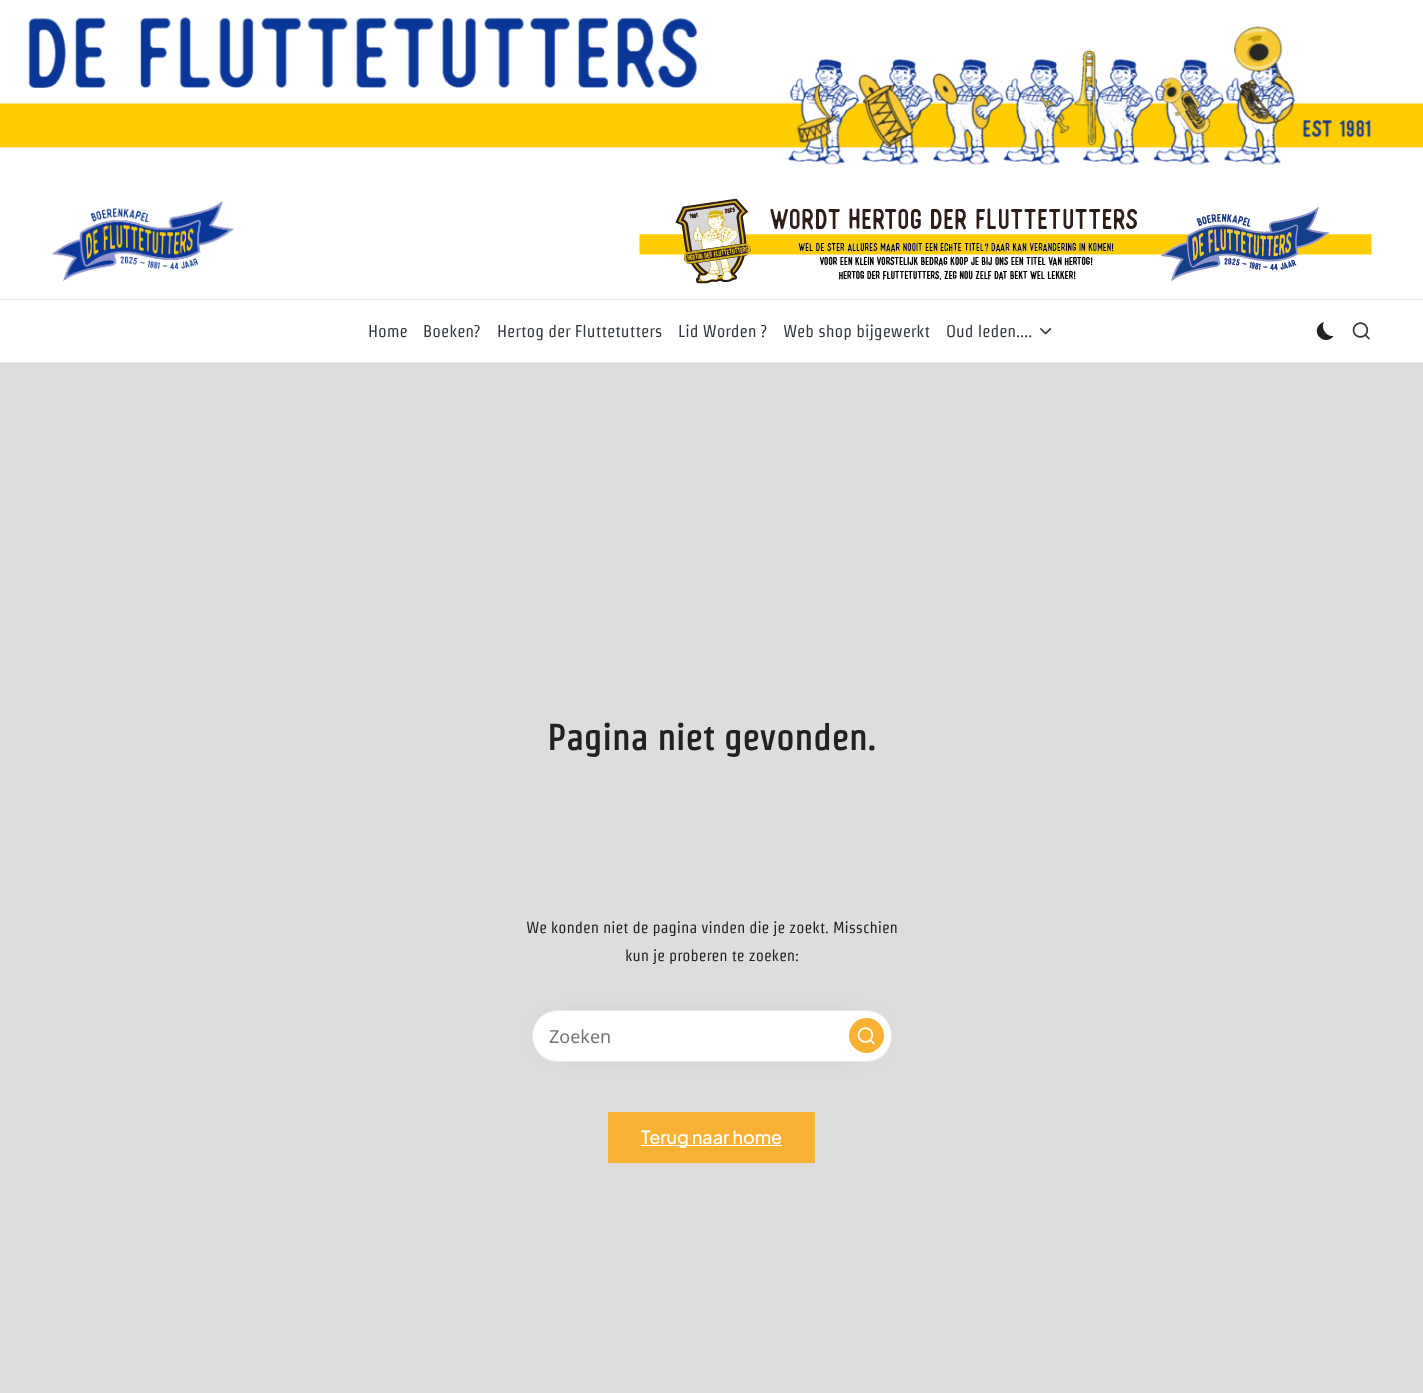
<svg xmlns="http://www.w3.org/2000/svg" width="1423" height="1393">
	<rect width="100%" height="100%" fill="#DDDDDB" />
	<image x="0" y="0" width="1423" height="183" href="assets/img1.png" />
	<rect x="0" y="183" width="1423" height="116" fill="#FFFFFF" />
	<image x="52" y="201" width="182" height="80" href="assets/img2.png" />
	<image x="639" y="198" width="733" height="86" href="assets/img3.png" />
	<rect x="0" y="300" width="1423" height="62" fill="#FFFFFF" />
	<rect x="0" y="299" width="1423" height="1" fill="#E9E9E9" />
	<rect x="0" y="362" width="1423" height="1" fill="#E9E9E9" />
	<g font-family="Strait" font-size="17" fill="#30373E">
		<text x="368" y="337">Home</text>
		<text x="423" y="337">Boeken?</text>
		<text x="497" y="337">Hertog der Fluttetutters</text>
		<text x="678" y="337">Lid Worden ?</text>
		<text x="783" y="337">Web shop bijgewerkt</text>
		<text x="946" y="337">Oud leden….</text>
	</g>
	<image x="1040" y="328" width="12" height="7" href="assets/img4.png" />
	<path d="M1333.5 336C1326.5 337 1320.5 328.5 1324 322C1321.5 322.5 1319.5 324.5 1318 326.5C1312.5 336.5 1327.5 345.5 1333.5 336Z" fill="#212121" />
	<image x="1352" y="322" width="18" height="18" href="assets/img5.png" />
	<text x="547" y="750" font-family="Strait" font-size="36" font-weight="700" fill="#212121">Pagina niet gevonden.</text>
	<g font-family="Strait" font-size="16" fill="#212121">
		<text x="526" y="933">We konden niet de pagina vinden die je zoekt. Misschien</text>
		<text x="625" y="961">kun je proberen te zoeken:</text>
	</g>
	<rect x="545" y="1026" width="328" height="20" rx="10" fill="#000000" fill-opacity="0.15" filter="blur(16px)" />
	<rect x="532" y="1010" width="360" height="52" rx="26" fill="#FFFFFF" />
	<rect x="532.5" y="1010.5" width="359" height="51" rx="25.5" fill="none" stroke="#BEBEBE" stroke-opacity="0.3" />
	<text x="549" y="1043" font-family="Noto Sans" font-size="18" fill="#757575">Zoeken</text>
	<circle cx="866.5" cy="1035.5" r="17.5" fill="#F9B233" />
	<image x="857" y="1027" width="18" height="18" href="assets/img6.png" />
	<rect x="608" y="1112" width="207" height="51" fill="#F9B233" />
	<rect x="641" y="1145" width="141" height="1" fill="#FFFFFF" />
	<text x="641" y="1144" font-family="Plus Jakarta Sans" font-size="18" font-weight="500" fill="#FFFFFF">Terug naar home</text>
</svg>
